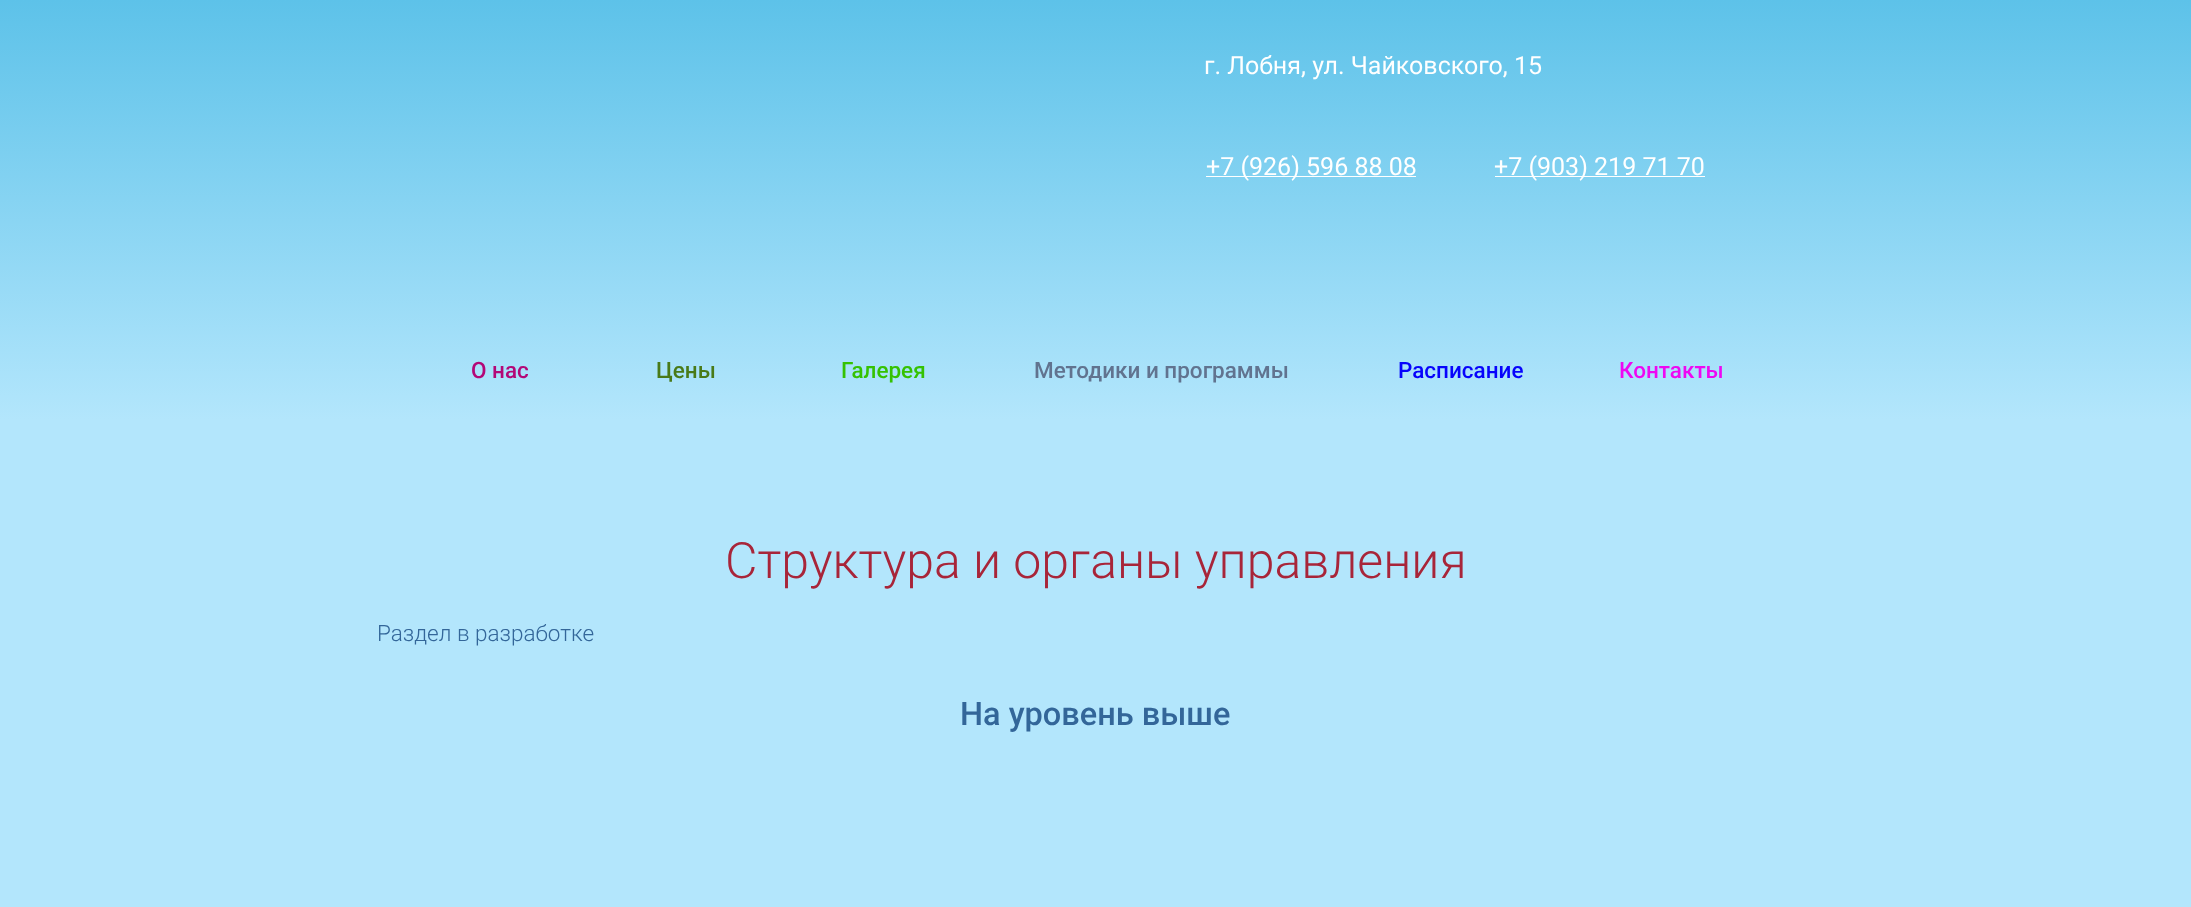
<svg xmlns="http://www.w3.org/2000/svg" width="2191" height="907">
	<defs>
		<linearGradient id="g1" gradientUnits="userSpaceOnUse" x1="1096" y1="0" x2="1096" y2="433"><stop offset="0" stop-color="#48C4E1" /><stop offset="0" stop-color="#91BDFF" /><stop offset="0" stop-color="#73C0F2" /><stop offset="0" stop-color="#6AC1EE" /><stop offset="0" stop-color="#7EBFF7" /><stop offset="0" stop-color="#5DC2E9" /><stop offset="0.97" stop-color="#B3E6FC" /></linearGradient>
	</defs>
	<rect width="100%" height="100%" fill="#FFFFFF" />
	<rect x="0" y="0" width="2191" height="431" fill="url(#g1)" />
	<text x="1204" y="74" font-family="Roboto" font-size="25" fill="#FFFFFF">г. Лобня, ул. Чайковского, 15</text>
	<rect x="1206" y="176" width="210" height="1" fill="#FFFFFF" />
	<text x="1206" y="175" font-family="Roboto" font-size="25" fill="#FFFFFF">+7 (926) 596 88 08</text>
	<rect x="1495" y="176" width="210" height="1" fill="#FFFFFF" />
	<text x="1494" y="175" font-family="Roboto" font-size="25" fill="#FFFFFF">+7 (903) 219 71 70</text>
	<text x="471" y="378" font-family="Roboto" font-size="22.5" font-weight="500" fill="#B30777">О нас</text>
	<text x="656" y="378" font-family="Roboto" font-size="22.5" font-weight="500" fill="#497A18">Цены</text>
	<text x="841" y="378" font-family="Roboto" font-size="22.5" font-weight="500" fill="#35C202">Галерея</text>
	<text x="1034" y="378" font-family="Roboto" font-size="22.5" font-weight="500" fill="#61738F">Методики и программы</text>
	<text x="1398" y="378" font-family="Roboto" font-size="22.5" font-weight="500" fill="#0703FC">Расписание</text>
	<text x="1619" y="378" font-family="Roboto" font-size="22.5" font-weight="500" fill="#EE08F2">Контакты</text>
	<rect x="0" y="431" width="2191" height="476" fill="#B3E6FC" />
	<text x="725" y="578" font-family="Roboto" font-size="50" font-weight="300" fill="#A82539">Структура и органы управления</text>
	<text x="377" y="641" font-family="Roboto" font-size="22.5" font-weight="300" fill="#336699">Раздел в разработке</text>
	<text x="960" y="725" font-family="Roboto" font-size="32.5" font-weight="500" fill="#336699">На уровень выше</text>
</svg>
